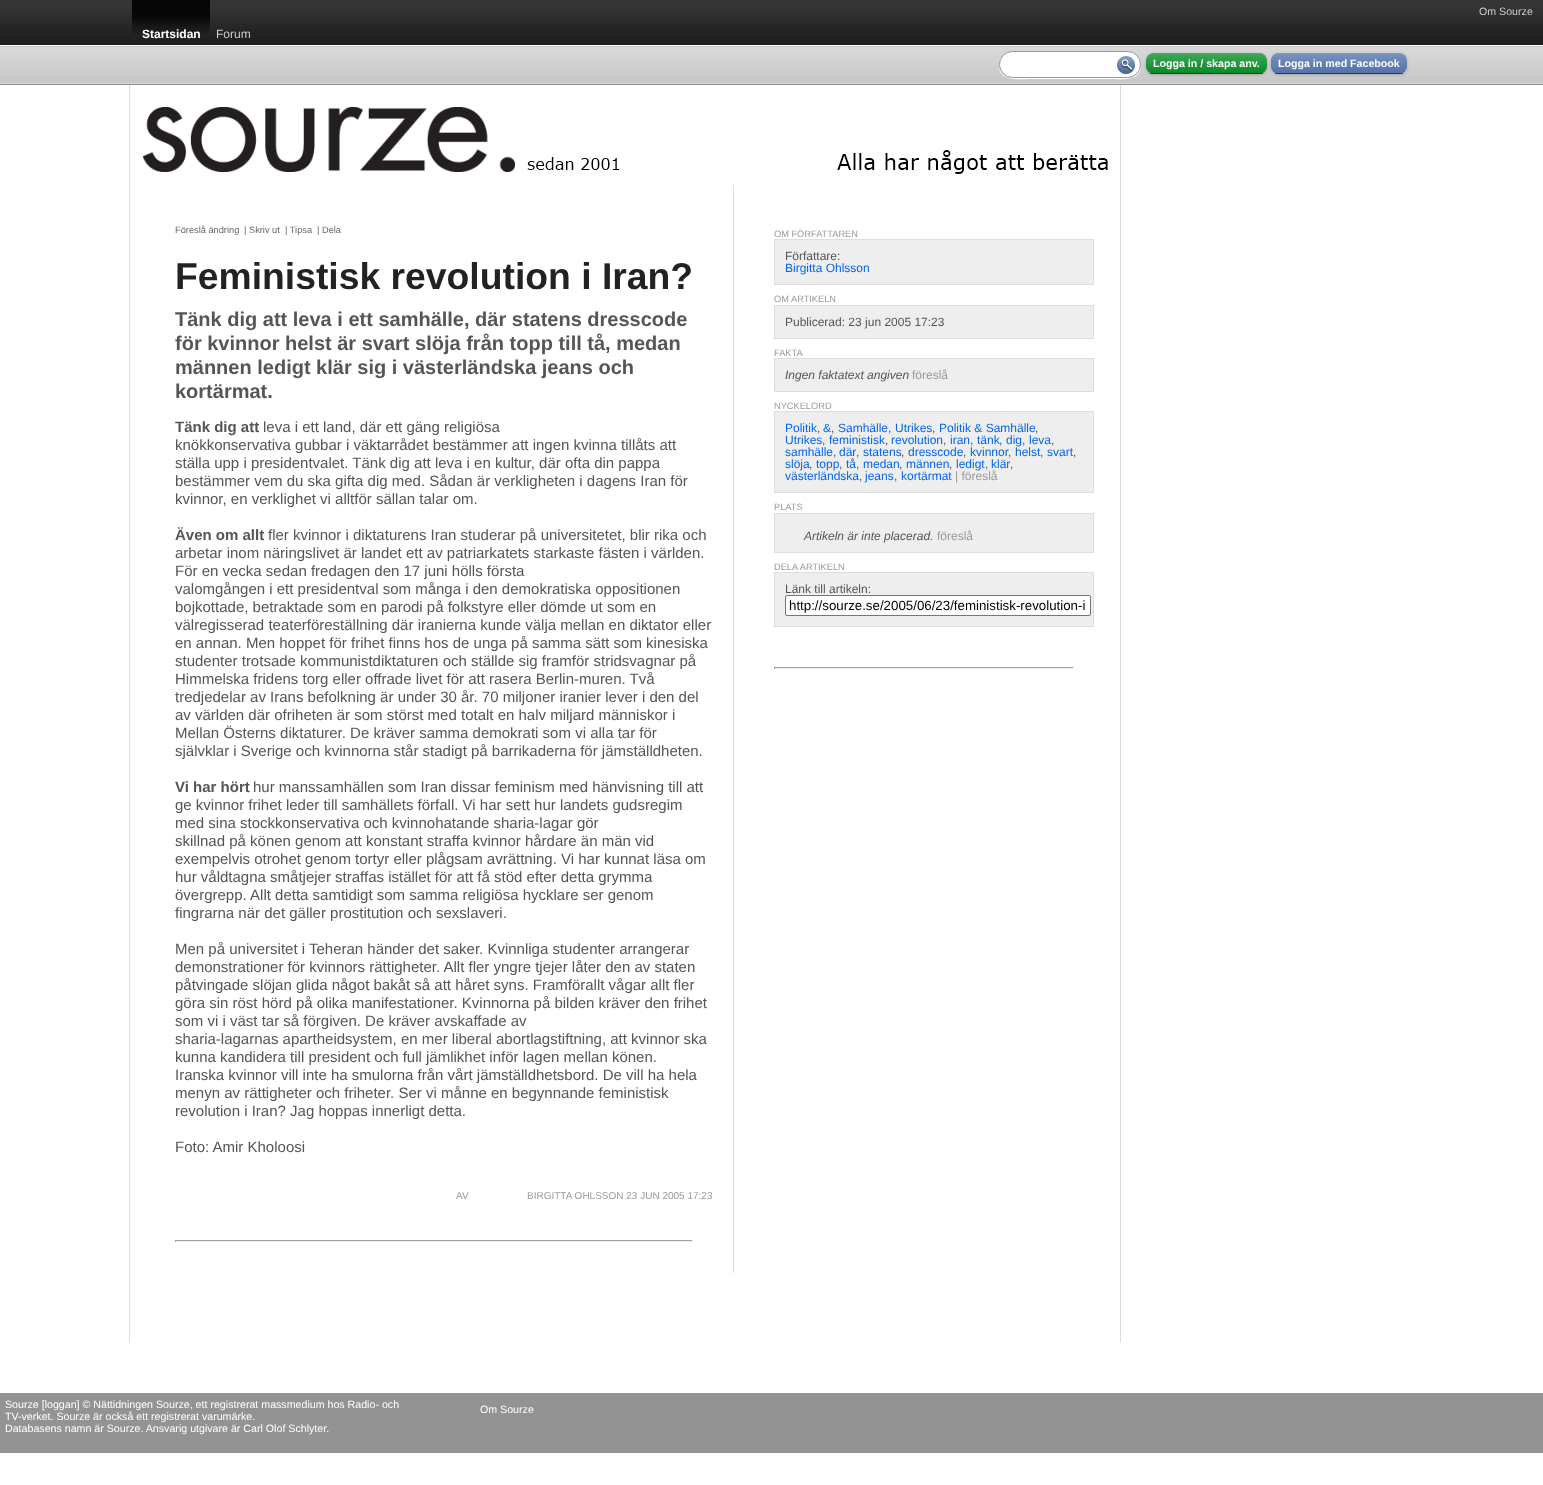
<svg xmlns="http://www.w3.org/2000/svg" width="1543" height="1485">
	<rect width="100%" height="100%" fill="#FFFFFF" />
	<image x="0" y="0" width="1543" height="45" href="assets/img1.png" />
	<text x="1479" y="15" font-family="Liberation Sans" font-size="10.65" fill="#CCCCCC">Om Sourze</text>
	<image x="132" y="0" width="78" height="34" href="assets/img2.png" />
	<text x="142" y="38" font-family="Liberation Sans" font-size="12" font-weight="700" fill="#FFFFFF">Startsidan</text>
	<text x="216" y="38" font-family="Liberation Sans" font-size="12" fill="#CCCCCC">Forum</text>
	<image x="0" y="45" width="1543" height="40" href="assets/img3.png" />
	<rect x="1146" y="54" width="121" height="21" rx="8" fill="#000000" fill-opacity="0.2" filter="blur(1.5px)" />
	<path d="M999 65C998 83 1021 79 1032 79H1108C1119 79 1142 83 1141 65C1141 72 1135 78 1128 78H1012C1005 78 999 72 999 65Z" fill="#FFFFFF" />
	<rect x="999.5" y="51.5" width="141" height="26" rx="13" fill="#FFFFFF" stroke="#999999" />
	<image x="1117" y="56" width="18" height="18" href="assets/img4.png" />
	<rect x="1146" y="53" width="121" height="21" rx="8" fill="#008822" />
	<image x="1146" y="53" width="121" height="21" href="assets/img5.png" />
	<rect x="1150" y="73" width="113" height="1" fill="#000000" fill-opacity="0.5" />
	<text x="1153" y="67" font-family="Liberation Sans" font-size="10.65" font-weight="700" fill="#FFFFFF">Logga in / skapa anv.</text>
	<rect x="1271" y="54" width="136" height="21" rx="8" fill="#000000" fill-opacity="0.2" filter="blur(1.5px)" />
	<rect x="1271" y="53" width="136" height="21" rx="8" fill="#4C6EA9" />
	<image x="1271" y="53" width="136" height="21" href="assets/img6.png" />
	<rect x="1275" y="73" width="128" height="1" fill="#000000" fill-opacity="0.5" />
	<text x="1278" y="67" font-family="Liberation Sans" font-size="10.65" font-weight="700" fill="#FFFFFF">Logga in med Facebook</text>
	<rect x="129" y="85" width="1" height="1258" fill="#DDDDDD" />
	<rect x="1120" y="85" width="1" height="1258" fill="#DDDDDD" />
	<image x="143" y="107" width="965" height="67" href="assets/img7.png" />
	<rect x="733" y="185" width="1" height="1088" fill="#DDDDDD" />
	<g font-family="Liberation Sans" font-size="9.25" fill="#666666">
		<text x="175" y="233">Föreslå ändring</text>
		<text x="244" y="233">| Skriv ut</text>
		<text x="285" y="233">| Tipsa</text>
		<text x="317" y="233">| Dela</text>
	</g>
	<text x="175" y="289" font-family="Liberation Sans" font-size="37.3" font-weight="700" fill="#222222">Feministisk revolution i Iran?</text>
	<g font-family="Liberation Sans" font-size="20" font-weight="700" fill="#555555">
		<text x="175" y="326">Tänk dig att leva i ett samhälle, där statens dresscode</text>
		<text x="175" y="350">för kvinnor helst är svart slöja från topp till tå, medan</text>
		<text x="175" y="374">männen ledigt klär sig i västerländska jeans och</text>
		<text x="175" y="398">kortärmat.</text>
	</g>
	<text x="175" y="432" font-family="Liberation Sans" font-size="15" font-weight="700" fill="#555555">Tänk dig att</text>
	<g font-family="Liberation Sans" font-size="15" fill="#555555">
		<text x="263" y="432">leva i ett land, där ett gäng religiösa</text>
		<text x="175" y="450">knökkonservativa gubbar i väktarrådet bestämmer att ingen kvinna tillåts att</text>
		<text x="175" y="468">ställa upp i presidentvalet. Tänk dig att leva i en kultur, där ofta din pappa</text>
		<text x="175" y="486">bestämmer vem du ska gifta dig med. Sådan är verkligheten i dagens Iran för</text>
		<text x="175" y="504">kvinnor, en verklighet vi alltför sällan talar om.</text>
	</g>
	<text x="175" y="540" font-family="Liberation Sans" font-size="15" font-weight="700" fill="#555555">Även om allt</text>
	<g font-family="Liberation Sans" font-size="15" fill="#555555">
		<text x="268" y="540">fler kvinnor i diktaturens Iran studerar på universitetet, blir rika och</text>
		<text x="175" y="558">arbetar inom näringslivet är landet ett av patriarkatets starkaste fästen i världen.</text>
		<text x="175" y="576">För en vecka sedan fredagen den 17 juni hölls första</text>
		<text x="175" y="594">valomgången i ett presidentval som många i den demokratiska oppositionen</text>
		<text x="175" y="612">bojkottade, betraktade som en parodi på folkstyre eller dömde ut som en</text>
		<text x="175" y="630">välregisserad teaterföreställning där iranierna kunde välja mellan en diktator eller</text>
		<text x="175" y="648">en annan. Men hoppet för frihet finns hos de unga på samma sätt som kinesiska</text>
		<text x="175" y="666">studenter trotsade kommunistdiktaturen och ställde sig framför stridsvagnar på</text>
		<text x="175" y="684">Himmelska fridens torg eller offrade livet för att rasera Berlin-muren. Två</text>
		<text x="175" y="702">tredjedelar av Irans befolkning är under 30 år. 70 miljoner iranier lever i den del</text>
		<text x="175" y="720">av världen där ofriheten är som störst med totalt en halv miljard människor i</text>
		<text x="175" y="738">Mellan Österns diktaturer. De kräver samma demokrati som vi alla tar för</text>
		<text x="175" y="756">självklar i Sverige och kvinnorna står stadigt på barrikaderna för jämställdheten.</text>
	</g>
	<text x="175" y="792" font-family="Liberation Sans" font-size="15" font-weight="700" fill="#555555">Vi har hört</text>
	<g font-family="Liberation Sans" font-size="15" fill="#555555">
		<text x="253" y="792">hur manssamhällen som Iran dissar feminism med hänvisning till att</text>
		<text x="175" y="810">ge kvinnor frihet leder till samhällets förfall. Vi har sett hur landets gudsregim</text>
		<text x="175" y="828">med sina stockkonservativa och kvinnohatande sharia-lagar gör</text>
		<text x="175" y="846">skillnad på könen genom att konstant straffa kvinnor hårdare än män vid</text>
		<text x="175" y="864">exempelvis otrohet genom tortyr eller plågsam avrättning. Vi har kunnat läsa om</text>
		<text x="175" y="882">hur våldtagna småtjejer straffas istället för att få stöd efter detta grymma</text>
		<text x="175" y="900">övergrepp. Allt detta samtidigt som samma religiösa hycklare ser genom</text>
		<text x="175" y="918">fingrarna när det gäller prostitution och sexslaveri.</text>
		<text x="175" y="954">Men på universitet i Teheran händer det saker. Kvinnliga studenter arrangerar</text>
		<text x="175" y="972">demonstrationer för kvinnors rättigheter. Allt fler yngre tjejer låter den av staten</text>
		<text x="175" y="990">påtvingade slöjan glida något bakåt så att håret syns. Framförallt vågar allt fler</text>
		<text x="175" y="1008">göra sin röst hörd på olika manifestationer. Kvinnorna på bilden kräver den frihet</text>
		<text x="175" y="1026">som vi i väst tar så förgiven. De kräver avskaffade av</text>
		<text x="175" y="1044">sharia-lagarnas apartheidsystem, en mer liberal abortlagstiftning, att kvinnor ska</text>
		<text x="175" y="1062">kunna kandidera till president och full jämlikhet inför lagen mellan könen.</text>
		<text x="175" y="1080">Iranska kvinnor vill inte ha smulorna från vårt jämställdhetsbord. De vill ha hela</text>
		<text x="175" y="1098">menyn av rättigheter och friheter. Ser vi månne en begynnande feministisk</text>
		<text x="175" y="1116">revolution i Iran? Jag hoppas innerligt detta.</text>
		<text x="175" y="1152">Foto: Amir Kholoosi</text>
	</g>
	<g font-family="Liberation Sans" font-size="10" fill="#999999">
		<text x="456" y="1199">AV</text>
		<text x="527" y="1199">BIRGITTA OHLSSON 23 JUN 2005 17:23</text>
	</g>
	<rect x="175" y="1240" width="518" height="1" fill="#9F9F9F" />
	<rect x="692" y="1240" width="1" height="2" fill="#EEEEEE" />
	<rect x="175" y="1241" width="518" height="1" fill="#EEEEEE" />
	<rect x="175" y="1240" width="1" height="2" fill="#9F9F9F" />
	<text x="774" y="237" font-family="Liberation Sans" font-size="9.25" fill="#999999">OM FÖRFATTAREN</text>
	<rect x="774.5" y="239.5" width="319" height="45" fill="#EEEEEE" stroke="#DDDDDD" />
	<text x="785" y="260" font-family="Liberation Sans" font-size="12" fill="#555555">Författare:</text>
	<text x="785" y="272" font-family="Liberation Sans" font-size="12" fill="#0066EE">Birgitta Ohlsson</text>
	<text x="774" y="302" font-family="Liberation Sans" font-size="9.25" fill="#999999">OM ARTIKELN</text>
	<rect x="774.5" y="305.5" width="319" height="33" fill="#EEEEEE" stroke="#DDDDDD" />
	<text x="785" y="326" font-family="Liberation Sans" font-size="12" fill="#555555">Publicerad: 23 jun 2005 17:23</text>
	<text x="774" y="356" font-family="Liberation Sans" font-size="9.25" fill="#999999">FAKTA</text>
	<rect x="774.5" y="358.5" width="319" height="33" fill="#EEEEEE" stroke="#DDDDDD" />
	<text x="785" y="379" font-family="Liberation Sans" font-size="12" font-style="italic" fill="#555555">Ingen faktatext angiven</text>
	<text x="912" y="379" font-family="Liberation Sans" font-size="12" fill="#999999">föreslå</text>
	<text x="774" y="409" font-family="Liberation Sans" font-size="9.25" fill="#999999">NYCKELORD</text>
	<rect x="774.5" y="411.5" width="319" height="81" fill="#EEEEEE" stroke="#DDDDDD" />
	<text x="785" y="432" font-family="Liberation Sans" font-size="12" fill="#0066EE">Politik</text>
	<text x="817" y="432" font-family="Liberation Sans" font-size="12" fill="#555555">,</text>
	<text x="823" y="432" font-family="Liberation Sans" font-size="12" fill="#0066EE">&amp;</text>
	<text x="831" y="432" font-family="Liberation Sans" font-size="12" fill="#555555">,</text>
	<text x="838" y="432" font-family="Liberation Sans" font-size="12" fill="#0066EE">Samhälle</text>
	<text x="888" y="432" font-family="Liberation Sans" font-size="12" fill="#555555">,</text>
	<text x="895" y="432" font-family="Liberation Sans" font-size="12" fill="#0066EE">Utrikes</text>
	<text x="932" y="432" font-family="Liberation Sans" font-size="12" fill="#555555">,</text>
	<text x="939" y="432" font-family="Liberation Sans" font-size="12" fill="#0066EE">Politik &amp; Samhälle</text>
	<text x="1035" y="432" font-family="Liberation Sans" font-size="12" fill="#555555">,</text>
	<text x="785" y="444" font-family="Liberation Sans" font-size="12" fill="#0066EE">Utrikes</text>
	<text x="822" y="444" font-family="Liberation Sans" font-size="12" fill="#555555">,</text>
	<text x="829" y="444" font-family="Liberation Sans" font-size="12" fill="#0066EE">feministisk</text>
	<text x="885" y="444" font-family="Liberation Sans" font-size="12" fill="#555555">,</text>
	<text x="891" y="444" font-family="Liberation Sans" font-size="12" fill="#0066EE">revolution</text>
	<text x="943" y="444" font-family="Liberation Sans" font-size="12" fill="#555555">,</text>
	<text x="950" y="444" font-family="Liberation Sans" font-size="12" fill="#0066EE">iran</text>
	<text x="970" y="444" font-family="Liberation Sans" font-size="12" fill="#555555">,</text>
	<text x="977" y="444" font-family="Liberation Sans" font-size="12" fill="#0066EE">tänk</text>
	<text x="999" y="444" font-family="Liberation Sans" font-size="12" fill="#555555">,</text>
	<text x="1006" y="444" font-family="Liberation Sans" font-size="12" fill="#0066EE">dig</text>
	<text x="1022" y="444" font-family="Liberation Sans" font-size="12" fill="#555555">,</text>
	<text x="1029" y="444" font-family="Liberation Sans" font-size="12" fill="#0066EE">leva</text>
	<text x="1051" y="444" font-family="Liberation Sans" font-size="12" fill="#555555">,</text>
	<text x="785" y="456" font-family="Liberation Sans" font-size="12" fill="#0066EE">samhälle</text>
	<text x="833" y="456" font-family="Liberation Sans" font-size="12" fill="#555555">,</text>
	<text x="839" y="456" font-family="Liberation Sans" font-size="12" fill="#0066EE">där</text>
	<text x="856" y="456" font-family="Liberation Sans" font-size="12" fill="#555555">,</text>
	<text x="863" y="456" font-family="Liberation Sans" font-size="12" fill="#0066EE">statens</text>
	<text x="901" y="456" font-family="Liberation Sans" font-size="12" fill="#555555">,</text>
	<text x="908" y="456" font-family="Liberation Sans" font-size="12" fill="#0066EE">dresscode</text>
	<text x="963" y="456" font-family="Liberation Sans" font-size="12" fill="#555555">,</text>
	<text x="970" y="456" font-family="Liberation Sans" font-size="12" fill="#0066EE">kvinnor</text>
	<text x="1008" y="456" font-family="Liberation Sans" font-size="12" fill="#555555">,</text>
	<text x="1015" y="456" font-family="Liberation Sans" font-size="12" fill="#0066EE">helst</text>
	<text x="1040" y="456" font-family="Liberation Sans" font-size="12" fill="#555555">,</text>
	<text x="1047" y="456" font-family="Liberation Sans" font-size="12" fill="#0066EE">svart</text>
	<text x="1073" y="456" font-family="Liberation Sans" font-size="12" fill="#555555">,</text>
	<text x="785" y="468" font-family="Liberation Sans" font-size="12" fill="#0066EE">slöja</text>
	<text x="809" y="468" font-family="Liberation Sans" font-size="12" fill="#555555">,</text>
	<text x="816" y="468" font-family="Liberation Sans" font-size="12" fill="#0066EE">topp</text>
	<text x="839" y="468" font-family="Liberation Sans" font-size="12" fill="#555555">,</text>
	<text x="846" y="468" font-family="Liberation Sans" font-size="12" fill="#0066EE">tå</text>
	<text x="856" y="468" font-family="Liberation Sans" font-size="12" fill="#555555">,</text>
	<text x="863" y="468" font-family="Liberation Sans" font-size="12" fill="#0066EE">medan</text>
	<text x="899" y="468" font-family="Liberation Sans" font-size="12" fill="#555555">,</text>
	<text x="906" y="468" font-family="Liberation Sans" font-size="12" fill="#0066EE">männen</text>
	<text x="949" y="468" font-family="Liberation Sans" font-size="12" fill="#555555">,</text>
	<text x="956" y="468" font-family="Liberation Sans" font-size="12" fill="#0066EE">ledigt</text>
	<text x="985" y="468" font-family="Liberation Sans" font-size="12" fill="#555555">,</text>
	<text x="991" y="468" font-family="Liberation Sans" font-size="12" fill="#0066EE">klär</text>
	<text x="1010" y="468" font-family="Liberation Sans" font-size="12" fill="#555555">,</text>
	<text x="785" y="480" font-family="Liberation Sans" font-size="12" fill="#0066EE">västerländska</text>
	<text x="859" y="480" font-family="Liberation Sans" font-size="12" fill="#555555">,</text>
	<text x="865" y="480" font-family="Liberation Sans" font-size="12" fill="#0066EE">jeans</text>
	<text x="894" y="480" font-family="Liberation Sans" font-size="12" fill="#555555">,</text>
	<text x="901" y="480" font-family="Liberation Sans" font-size="12" fill="#0066EE">kortärmat</text>
	<text x="955" y="480" font-family="Liberation Sans" font-size="12" fill="#999999">| föreslå</text>
	<text x="774" y="510" font-family="Liberation Sans" font-size="9.25" fill="#999999">PLATS</text>
	<rect x="774.5" y="513.5" width="319" height="39" fill="#EEEEEE" stroke="#DDDDDD" />
	<text x="804" y="540" font-family="Liberation Sans" font-size="12" font-style="italic" fill="#555555">Artikeln är inte placerad.</text>
	<text x="937" y="540" font-family="Liberation Sans" font-size="12" fill="#999999">föreslå</text>
	<text x="774" y="570" font-family="Liberation Sans" font-size="9.25" fill="#999999">DELA ARTIKELN</text>
	<rect x="774.5" y="572.5" width="319" height="54" fill="#EEEEEE" stroke="#DDDDDD" />
	<text x="785" y="593" font-family="Liberation Sans" font-size="12" fill="#555555">Länk till artikeln:</text>
	<rect x="785.5" y="595.5" width="305" height="20" rx="1.5" fill="#FFFFFF" stroke="#767676" />
	<text x="789" y="610" font-family="Liberation Sans" font-size="13.3" fill="#000000">http://sourze.se/2005/06/23/feministisk-revolution-i</text>
	<rect x="774" y="667" width="300" height="1" fill="#9F9F9F" />
	<rect x="1073" y="667" width="1" height="2" fill="#EEEEEE" />
	<rect x="774" y="668" width="300" height="1" fill="#EEEEEE" />
	<rect x="774" y="667" width="1" height="2" fill="#9F9F9F" />
	<rect x="0" y="1393" width="1543" height="60" fill="#939393" />
	<g font-family="Liberation Sans" font-size="10.65" fill="#FFFFFF">
		<text x="5" y="1408">Sourze [loggan] © Nättidningen Sourze, ett registrerat massmedium hos Radio- och</text>
		<text x="5" y="1420">TV-verket. Sourze är också ett registrerat varumärke.</text>
		<text x="5" y="1432">Databasens namn är Sourze. Ansvarig utgivare är Carl Olof Schlyter.</text>
		<text x="480" y="1413">Om Sourze</text>
	</g>
</svg>
